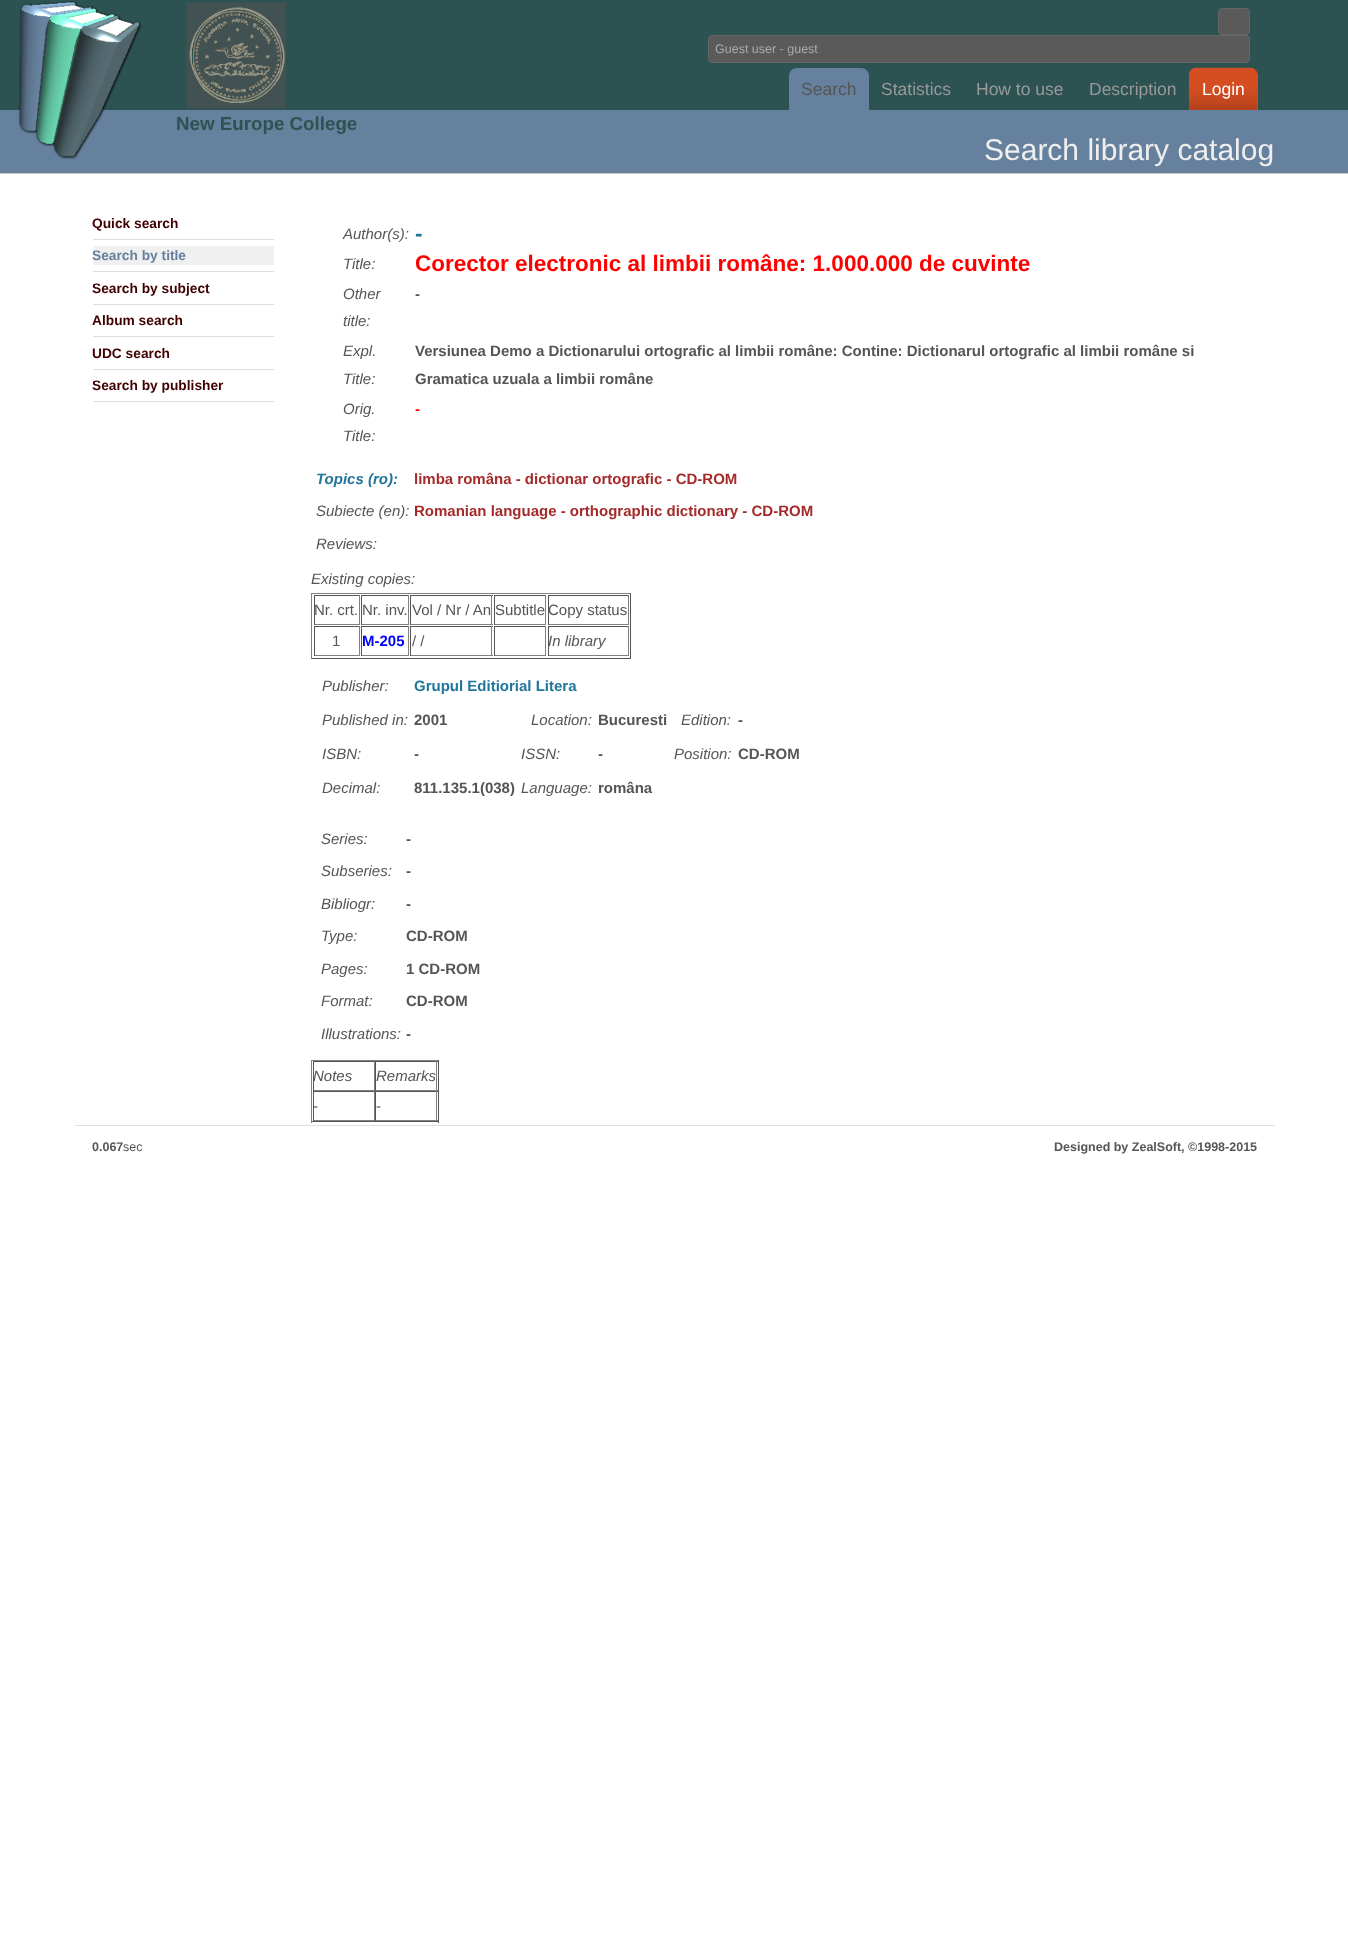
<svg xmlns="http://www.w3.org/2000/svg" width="1348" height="1957">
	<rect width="100%" height="100%" fill="#FFFFFF" />
	<rect x="0" y="0" width="1348" height="110" fill="#2D5252" />
	<rect x="0" y="110" width="1348" height="63" fill="#66819D" />
	<image x="18" y="1" width="124" height="158" href="assets/img1.png" />
	<image x="186" y="2" width="101" height="107" href="assets/img2.png" />
	<rect x="1218.5" y="8.5" width="31" height="26" rx="3.5" fill="#5A5A5A" stroke="#666666" />
	<rect x="708.5" y="35.5" width="541" height="27" rx="3.5" fill="#5A5A5A" stroke="#666666" />
	<text x="715" y="53" font-family="Liberation Sans" font-size="12.5" fill="#AAAAAA">Guest user - guest</text>
	<path d="M797 68H861C865.5 68 869 71.5 869 76V110H789V76C789 71.5 792.5 68 797 68Z" fill="#66819D" />
	<text x="801" y="95" font-family="Liberation Sans" font-size="17.5" fill="#555555">Search</text>
	<g font-family="Liberation Sans" font-size="17.5" fill="#999999">
		<text x="881" y="95">Statistics</text>
		<text x="976" y="95">How to use</text>
		<text x="1089" y="95">Description</text>
	</g>
	<path d="M1197 68H1250C1254.5 68 1258 71.5 1258 76V110H1189V76C1189 71.5 1192.5 68 1197 68Z" fill="#D54E21" />
	<image x="1188" y="67" width="70" height="43" href="assets/img3.png" />
	<text x="1202" y="95" font-family="Liberation Sans" font-size="17.5" fill="#FFFFFF">Login</text>
	<text x="176" y="130" font-family="Liberation Sans" font-size="18.75" font-weight="700" fill="#2D5252">New Europe College</text>
	<rect x="0" y="173" width="1348" height="1" fill="#C9C9C9" />
	<text x="984" y="160" font-family="Liberation Sans" font-size="30" fill="#EEEEEE">Search library catalog</text>
	<rect x="93" y="239" width="181" height="1" fill="#DEDEDE" />
	<text x="92" y="228" font-family="Liberation Sans" font-size="13.75" font-weight="700" fill="#400000">Quick search</text>
	<rect x="93" y="271" width="181" height="1" fill="#DEDEDE" />
	<rect x="93" y="246" width="181" height="19" fill="#F0F0F0" />
	<text x="92" y="260" font-family="Liberation Sans" font-size="13.75" font-weight="700" fill="#66819D">Search by title</text>
	<rect x="93" y="304" width="181" height="1" fill="#DEDEDE" />
	<text x="92" y="293" font-family="Liberation Sans" font-size="13.75" font-weight="700" fill="#400000">Search by subject</text>
	<rect x="93" y="336" width="181" height="1" fill="#DEDEDE" />
	<text x="92" y="325" font-family="Liberation Sans" font-size="13.75" font-weight="700" fill="#400000">Album search</text>
	<rect x="93" y="369" width="181" height="1" fill="#DEDEDE" />
	<text x="92" y="358" font-family="Liberation Sans" font-size="13.75" font-weight="700" fill="#400000">UDC search</text>
	<rect x="93" y="401" width="181" height="1" fill="#DEDEDE" />
	<text x="92" y="390" font-family="Liberation Sans" font-size="13.75" font-weight="700" fill="#400000">Search by publisher</text>
	<text x="343" y="239" font-family="Liberation Sans" font-size="15" font-style="italic" fill="#555555">Author(s):</text>
	<text x="415" y="241" font-family="Liberation Sans" font-size="22.5" font-weight="700" fill="#21759B">-</text>
	<text x="343" y="269" font-family="Liberation Sans" font-size="15" font-style="italic" fill="#555555">Title:</text>
	<text x="415" y="271" font-family="Liberation Sans" font-size="22.5" font-weight="700" fill="#FF0000">Corector electronic al limbii române: 1.000.000 de cuvinte</text>
	<g font-family="Liberation Sans" font-size="15" font-style="italic" fill="#555555">
		<text x="343" y="299">Other</text>
		<text x="343" y="326">title:</text>
	</g>
	<text x="415" y="299" font-family="Liberation Sans" font-size="15" font-weight="700" fill="#555555">-</text>
	<g font-family="Liberation Sans" font-size="15" font-style="italic" fill="#555555">
		<text x="343" y="356">Expl.</text>
		<text x="343" y="384">Title:</text>
	</g>
	<g font-family="Liberation Sans" font-size="15" font-weight="700" fill="#555555">
		<text x="415" y="356">Versiunea Demo a Dictionarului ortografic al limbii române: Contine: Dictionarul ortografic al limbii române si</text>
		<text x="415" y="384">Gramatica uzuala a limbii române</text>
	</g>
	<g font-family="Liberation Sans" font-size="15" font-style="italic" fill="#555555">
		<text x="343" y="414">Orig.</text>
		<text x="343" y="441">Title:</text>
	</g>
	<text x="415" y="414" font-family="Liberation Sans" font-size="15" font-weight="700" fill="#FF0000">-</text>
	<text x="316" y="484" font-family="Liberation Sans" font-size="15" font-weight="700" font-style="italic" fill="#21759B">Topics (ro):</text>
	<text x="414" y="484" font-family="Liberation Sans" font-size="15" font-weight="700" fill="#A52A2A">limba româna - dictionar ortografic - CD-ROM</text>
	<text x="316" y="516" font-family="Liberation Sans" font-size="15" font-style="italic" fill="#555555">Subiecte (en):</text>
	<text x="414" y="516" font-family="Liberation Sans" font-size="15" font-weight="700" fill="#A52A2A">Romanian language - orthographic dictionary - CD-ROM</text>
	<g font-family="Liberation Sans" font-size="15" font-style="italic" fill="#555555">
		<text x="316" y="549">Reviews:</text>
		<text x="311" y="584">Existing copies:</text>
	</g>
	<rect x="311" y="593" width="320" height="1" fill="#808080" />
	<rect x="630" y="593" width="1" height="66" fill="#555555" />
	<rect x="311" y="658" width="320" height="1" fill="#555555" />
	<rect x="311" y="593" width="1" height="66" fill="#808080" />
	<rect x="314" y="595" width="46" height="1" fill="#555555" />
	<rect x="359" y="595" width="1" height="30" fill="#808080" />
	<rect x="314" y="624" width="46" height="1" fill="#808080" />
	<rect x="314" y="595" width="1" height="30" fill="#555555" />
	<text x="314" y="615" font-family="Liberation Sans" font-size="15" fill="#555555">Nr. crt.</text>
	<rect x="361" y="595" width="48" height="1" fill="#555555" />
	<rect x="408" y="595" width="1" height="30" fill="#808080" />
	<rect x="361" y="624" width="48" height="1" fill="#808080" />
	<rect x="361" y="595" width="1" height="30" fill="#555555" />
	<text x="362" y="615" font-family="Liberation Sans" font-size="15" fill="#555555">Nr. inv.</text>
	<rect x="410" y="595" width="83" height="1" fill="#555555" />
	<rect x="491" y="595" width="1" height="30" fill="#808080" />
	<rect x="410" y="624" width="83" height="1" fill="#808080" />
	<rect x="410" y="595" width="1" height="30" fill="#555555" />
	<text x="412" y="615" font-family="Liberation Sans" font-size="15" fill="#555555">Vol / Nr / An</text>
	<rect x="494" y="595" width="52" height="1" fill="#555555" />
	<rect x="545" y="595" width="1" height="30" fill="#808080" />
	<rect x="494" y="624" width="52" height="1" fill="#808080" />
	<rect x="494" y="595" width="1" height="30" fill="#555555" />
	<text x="495" y="615" font-family="Liberation Sans" font-size="15" fill="#555555">Subtitle</text>
	<rect x="548" y="595" width="81" height="1" fill="#555555" />
	<rect x="628" y="595" width="1" height="30" fill="#808080" />
	<rect x="548" y="624" width="81" height="1" fill="#808080" />
	<rect x="548" y="595" width="1" height="30" fill="#555555" />
	<text x="548" y="615" font-family="Liberation Sans" font-size="15" fill="#555555">Copy status</text>
	<rect x="314" y="626" width="46" height="1" fill="#555555" />
	<rect x="359" y="626" width="1" height="30" fill="#808080" />
	<rect x="314" y="655" width="46" height="1" fill="#808080" />
	<rect x="314" y="626" width="1" height="30" fill="#555555" />
	<text x="332" y="646" font-family="Liberation Sans" font-size="15" fill="#555555">1</text>
	<rect x="361" y="626" width="48" height="1" fill="#555555" />
	<rect x="408" y="626" width="1" height="30" fill="#808080" />
	<rect x="361" y="655" width="48" height="1" fill="#808080" />
	<rect x="361" y="626" width="1" height="30" fill="#555555" />
	<text x="362" y="646" font-family="Liberation Sans" font-size="15" font-weight="700" fill="#0000FF">M-205</text>
	<rect x="410" y="626" width="83" height="1" fill="#555555" />
	<rect x="491" y="626" width="1" height="30" fill="#808080" />
	<rect x="410" y="655" width="83" height="1" fill="#808080" />
	<rect x="410" y="626" width="1" height="30" fill="#555555" />
	<text x="412" y="646" font-family="Liberation Sans" font-size="15" fill="#555555">/ /</text>
	<rect x="494" y="626" width="52" height="1" fill="#555555" />
	<rect x="545" y="626" width="1" height="30" fill="#808080" />
	<rect x="494" y="655" width="52" height="1" fill="#808080" />
	<rect x="494" y="626" width="1" height="30" fill="#555555" />
	<rect x="548" y="626" width="81" height="1" fill="#555555" />
	<rect x="628" y="626" width="1" height="30" fill="#808080" />
	<rect x="548" y="655" width="81" height="1" fill="#808080" />
	<rect x="548" y="626" width="1" height="30" fill="#555555" />
	<g font-family="Liberation Sans" font-size="15" font-style="italic" fill="#555555">
		<text x="548" y="646">In library</text>
		<text x="322" y="691">Publisher:</text>
	</g>
	<text x="414" y="691" font-family="Liberation Sans" font-size="15" font-weight="700" fill="#21759B">Grupul Editiorial Litera</text>
	<text x="322" y="725" font-family="Liberation Sans" font-size="15" font-style="italic" fill="#555555">Published in:</text>
	<text x="414" y="725" font-family="Liberation Sans" font-size="15" font-weight="700" fill="#555555">2001</text>
	<text x="531" y="725" font-family="Liberation Sans" font-size="15" font-style="italic" fill="#555555">Location:</text>
	<text x="598" y="725" font-family="Liberation Sans" font-size="15" font-weight="700" fill="#555555">Bucuresti</text>
	<text x="681" y="725" font-family="Liberation Sans" font-size="15" font-style="italic" fill="#555555">Edition:</text>
	<text x="738" y="725" font-family="Liberation Sans" font-size="15" font-weight="700" fill="#555555">-</text>
	<text x="322" y="759" font-family="Liberation Sans" font-size="15" font-style="italic" fill="#555555">ISBN:</text>
	<text x="414" y="759" font-family="Liberation Sans" font-size="15" font-weight="700" fill="#555555">-</text>
	<text x="521" y="759" font-family="Liberation Sans" font-size="15" font-style="italic" fill="#555555">ISSN:</text>
	<text x="598" y="759" font-family="Liberation Sans" font-size="15" font-weight="700" fill="#555555">-</text>
	<text x="674" y="759" font-family="Liberation Sans" font-size="15" font-style="italic" fill="#555555">Position:</text>
	<text x="738" y="759" font-family="Liberation Sans" font-size="15" font-weight="700" fill="#555555">CD-ROM</text>
	<text x="322" y="793" font-family="Liberation Sans" font-size="15" font-style="italic" fill="#555555">Decimal:</text>
	<text x="414" y="793" font-family="Liberation Sans" font-size="15" font-weight="700" fill="#555555">811.135.1(038)</text>
	<text x="521" y="793" font-family="Liberation Sans" font-size="15" font-style="italic" fill="#555555">Language:</text>
	<text x="598" y="793" font-family="Liberation Sans" font-size="15" font-weight="700" fill="#555555">româna</text>
	<text x="321" y="844" font-family="Liberation Sans" font-size="15" font-style="italic" fill="#555555">Series:</text>
	<text x="406" y="844" font-family="Liberation Sans" font-size="15" font-weight="700" fill="#555555">-</text>
	<text x="321" y="876" font-family="Liberation Sans" font-size="15" font-style="italic" fill="#555555">Subseries:</text>
	<text x="406" y="876" font-family="Liberation Sans" font-size="15" font-weight="700" fill="#555555">-</text>
	<text x="321" y="909" font-family="Liberation Sans" font-size="15" font-style="italic" fill="#555555">Bibliogr:</text>
	<text x="406" y="909" font-family="Liberation Sans" font-size="15" font-weight="700" fill="#555555">-</text>
	<text x="321" y="941" font-family="Liberation Sans" font-size="15" font-style="italic" fill="#555555">Type:</text>
	<text x="406" y="941" font-family="Liberation Sans" font-size="15" font-weight="700" fill="#555555">CD-ROM</text>
	<text x="321" y="974" font-family="Liberation Sans" font-size="15" font-style="italic" fill="#555555">Pages:</text>
	<text x="406" y="974" font-family="Liberation Sans" font-size="15" font-weight="700" fill="#555555">1 CD-ROM</text>
	<text x="321" y="1006" font-family="Liberation Sans" font-size="15" font-style="italic" fill="#555555">Format:</text>
	<text x="406" y="1006" font-family="Liberation Sans" font-size="15" font-weight="700" fill="#555555">CD-ROM</text>
	<text x="321" y="1039" font-family="Liberation Sans" font-size="15" font-style="italic" fill="#555555">Illustrations:</text>
	<text x="406" y="1039" font-family="Liberation Sans" font-size="15" font-weight="700" fill="#555555">-</text>
	<rect x="311" y="1060" width="128" height="1" fill="#808080" />
	<rect x="438" y="1060" width="1" height="63" fill="#555555" />
	<rect x="311" y="1121" width="128" height="1" fill="#555555" />
	<rect x="311" y="1060" width="1" height="63" fill="#808080" />
	<rect x="313" y="1061" width="125" height="1" fill="#555555" />
	<rect x="374" y="1061" width="1" height="30" fill="#808080" />
	<rect x="313" y="1090" width="62" height="1" fill="#808080" />
	<rect x="313" y="1061" width="1" height="30" fill="#555555" />
	<text x="313" y="1081" font-family="Liberation Sans" font-size="15" font-style="italic" fill="#555555">Notes</text>
	<rect x="436" y="1061" width="1" height="30" fill="#808080" />
	<rect x="375" y="1090" width="63" height="1" fill="#808080" />
	<rect x="375" y="1061" width="1" height="30" fill="#555555" />
	<text x="376" y="1081" font-family="Liberation Sans" font-size="15" font-style="italic" fill="#555555">Remarks</text>
	<rect x="313" y="1091" width="125" height="1" fill="#555555" />
	<rect x="374" y="1091" width="1" height="30" fill="#808080" />
	<rect x="313" y="1120" width="62" height="1" fill="#808080" />
	<rect x="313" y="1091" width="1" height="30" fill="#555555" />
	<text x="313" y="1111" font-family="Liberation Sans" font-size="15" fill="#555555">-</text>
	<rect x="436" y="1091" width="1" height="30" fill="#808080" />
	<rect x="375" y="1120" width="63" height="1" fill="#808080" />
	<rect x="375" y="1091" width="1" height="30" fill="#555555" />
	<text x="376" y="1111" font-family="Liberation Sans" font-size="15" fill="#555555">-</text>
	<rect x="75" y="1125" width="1200" height="1" fill="#DEDEDE" />
	<text x="92" y="1151" font-family="Liberation Sans" font-size="12.5" font-weight="700" fill="#555555">0.067</text>
	<text x="123" y="1151" font-family="Liberation Sans" font-size="12.5" fill="#555555">sec</text>
	<text x="1054" y="1151" font-family="Liberation Sans" font-size="12.5" font-weight="700" fill="#555555">Designed by ZealSoft, ©1998-2015</text>
</svg>
